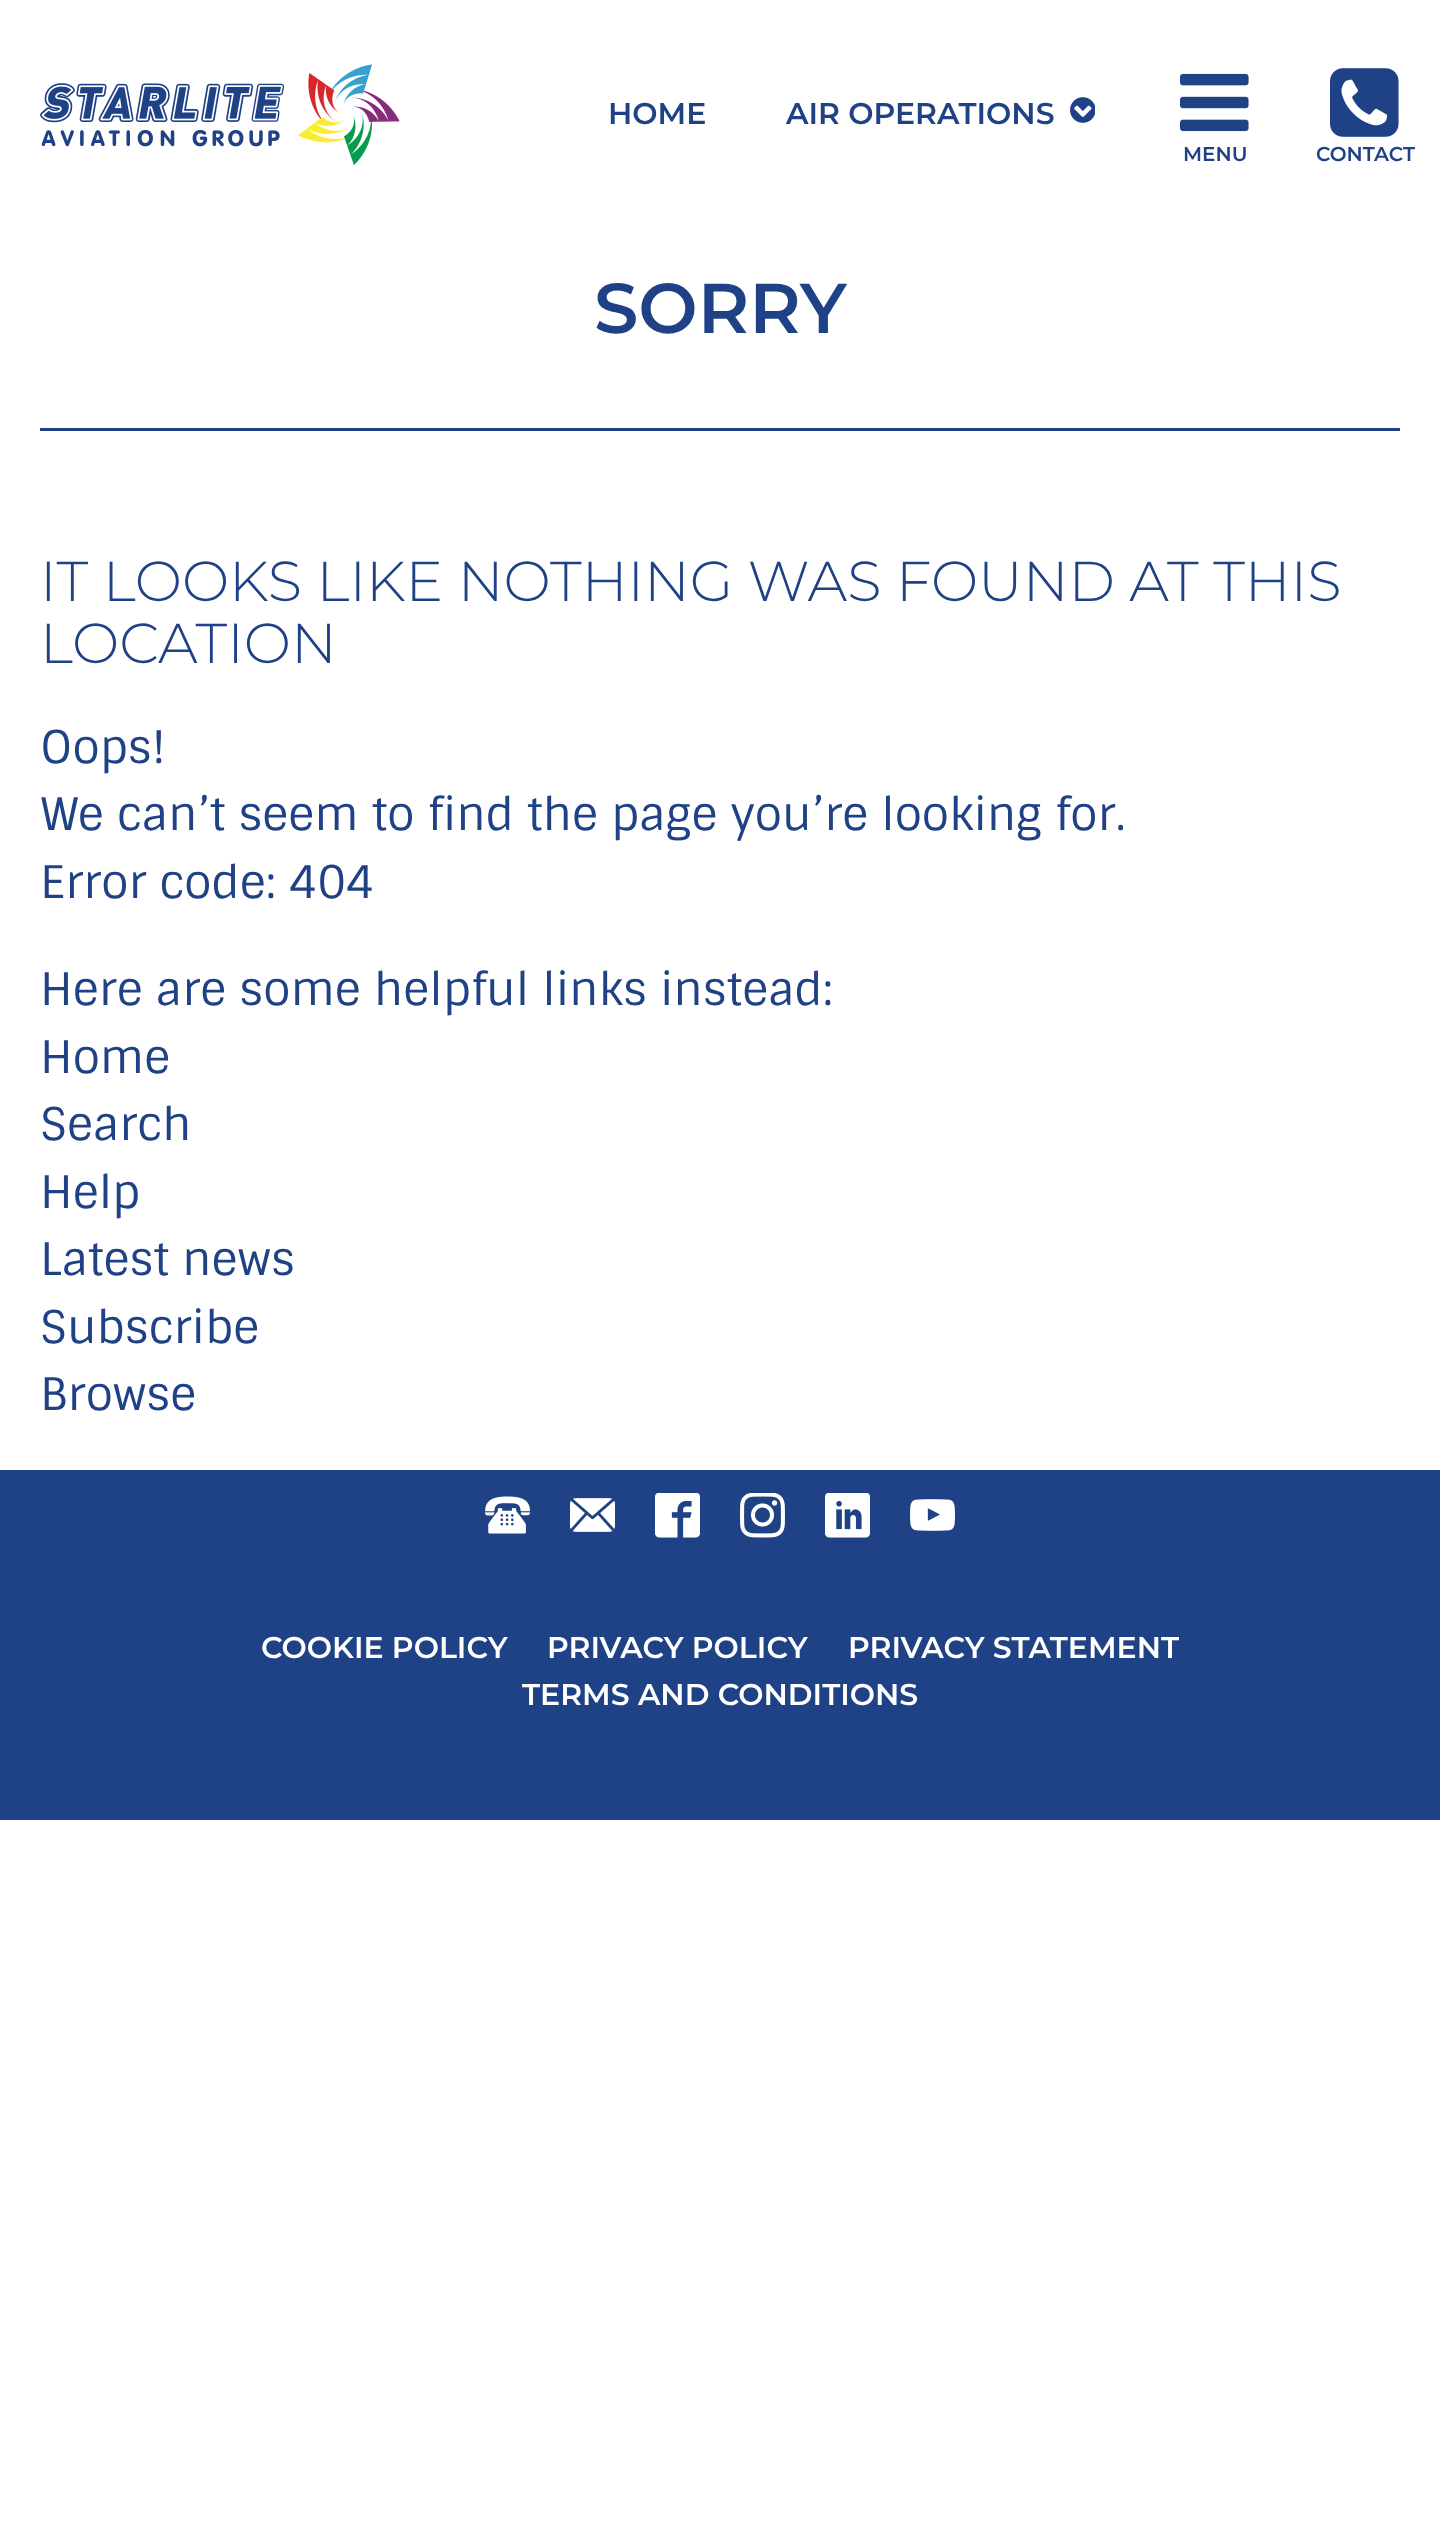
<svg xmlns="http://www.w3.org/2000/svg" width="1440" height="2522">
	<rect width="100%" height="100%" fill="#FFFFFF" />
	<image x="40" y="64" width="360" height="101" href="assets/img1.png" />
	<g font-family="Montserrat" font-size="30" font-weight="600" fill="#1F4185">
		<text x="608" y="124">HOME</text>
		<text x="786" y="124">AIR OPERATIONS</text>
	</g>
	<image x="1070" y="97" width="25" height="26" href="assets/img2.png" />
	<image x="1180" y="73" width="69" height="59" href="assets/img3.png" />
	<text x="1183" y="161" font-family="Montserrat" font-size="20" font-weight="600" fill="#1F4185">MENU</text>
	<image x="1330" y="68" width="69" height="69" href="assets/img4.png" />
	<text x="1316" y="161" font-family="Montserrat" font-size="20" font-weight="600" fill="#1F4185">CONTACT</text>
	<rect x="40" y="428" width="1360" height="3" fill="#1F4185" />
	<text x="594" y="333" font-family="Montserrat" font-size="70.5" font-weight="600" fill="#1F4185">SORRY</text>
	<g font-family="Montserrat" font-size="56.25" font-weight="300" fill="#1F4185">
		<text x="40" y="601">IT LOOKS LIKE NOTHING WAS FOUND AT THIS</text>
		<text x="40" y="663">LOCATION</text>
	</g>
	<g font-family="Sintony" font-size="45" fill="#1F4185">
		<text x="40" y="763">Oops!</text>
		<text x="40" y="830">We can’t seem to find the page you’re looking for.</text>
		<text x="40" y="898">Error code: 404</text>
		<text x="40" y="1005">Here are some helpful links instead:</text>
		<text x="40" y="1073">Home</text>
		<text x="40" y="1140">Search</text>
		<text x="40" y="1208">Help</text>
		<text x="40" y="1275">Latest news</text>
		<text x="40" y="1343">Subscribe</text>
		<text x="40" y="1410">Browse</text>
	</g>
	<rect x="0" y="1470" width="1440" height="350" fill="#1F4185" />
	<image x="485" y="1496" width="45" height="38" href="assets/img5.png" />
	<image x="570" y="1498" width="45" height="34" href="assets/img6.png" />
	<image x="655" y="1493" width="45" height="45" href="assets/img7.png" />
	<image x="740" y="1493" width="45" height="45" href="assets/img8.png" />
	<image x="825" y="1493" width="45" height="45" href="assets/img9.png" />
	<image x="910" y="1499" width="45" height="32" href="assets/img10.png" />
	<g font-family="Montserrat" font-size="30" font-weight="600" fill="#FFFFFF">
		<text x="261" y="1658">COOKIE POLICY</text>
		<text x="547" y="1658">PRIVACY POLICY</text>
		<text x="848" y="1658">PRIVACY STATEMENT</text>
		<text x="522" y="1705">TERMS AND CONDITIONS</text>
	</g>
</svg>
